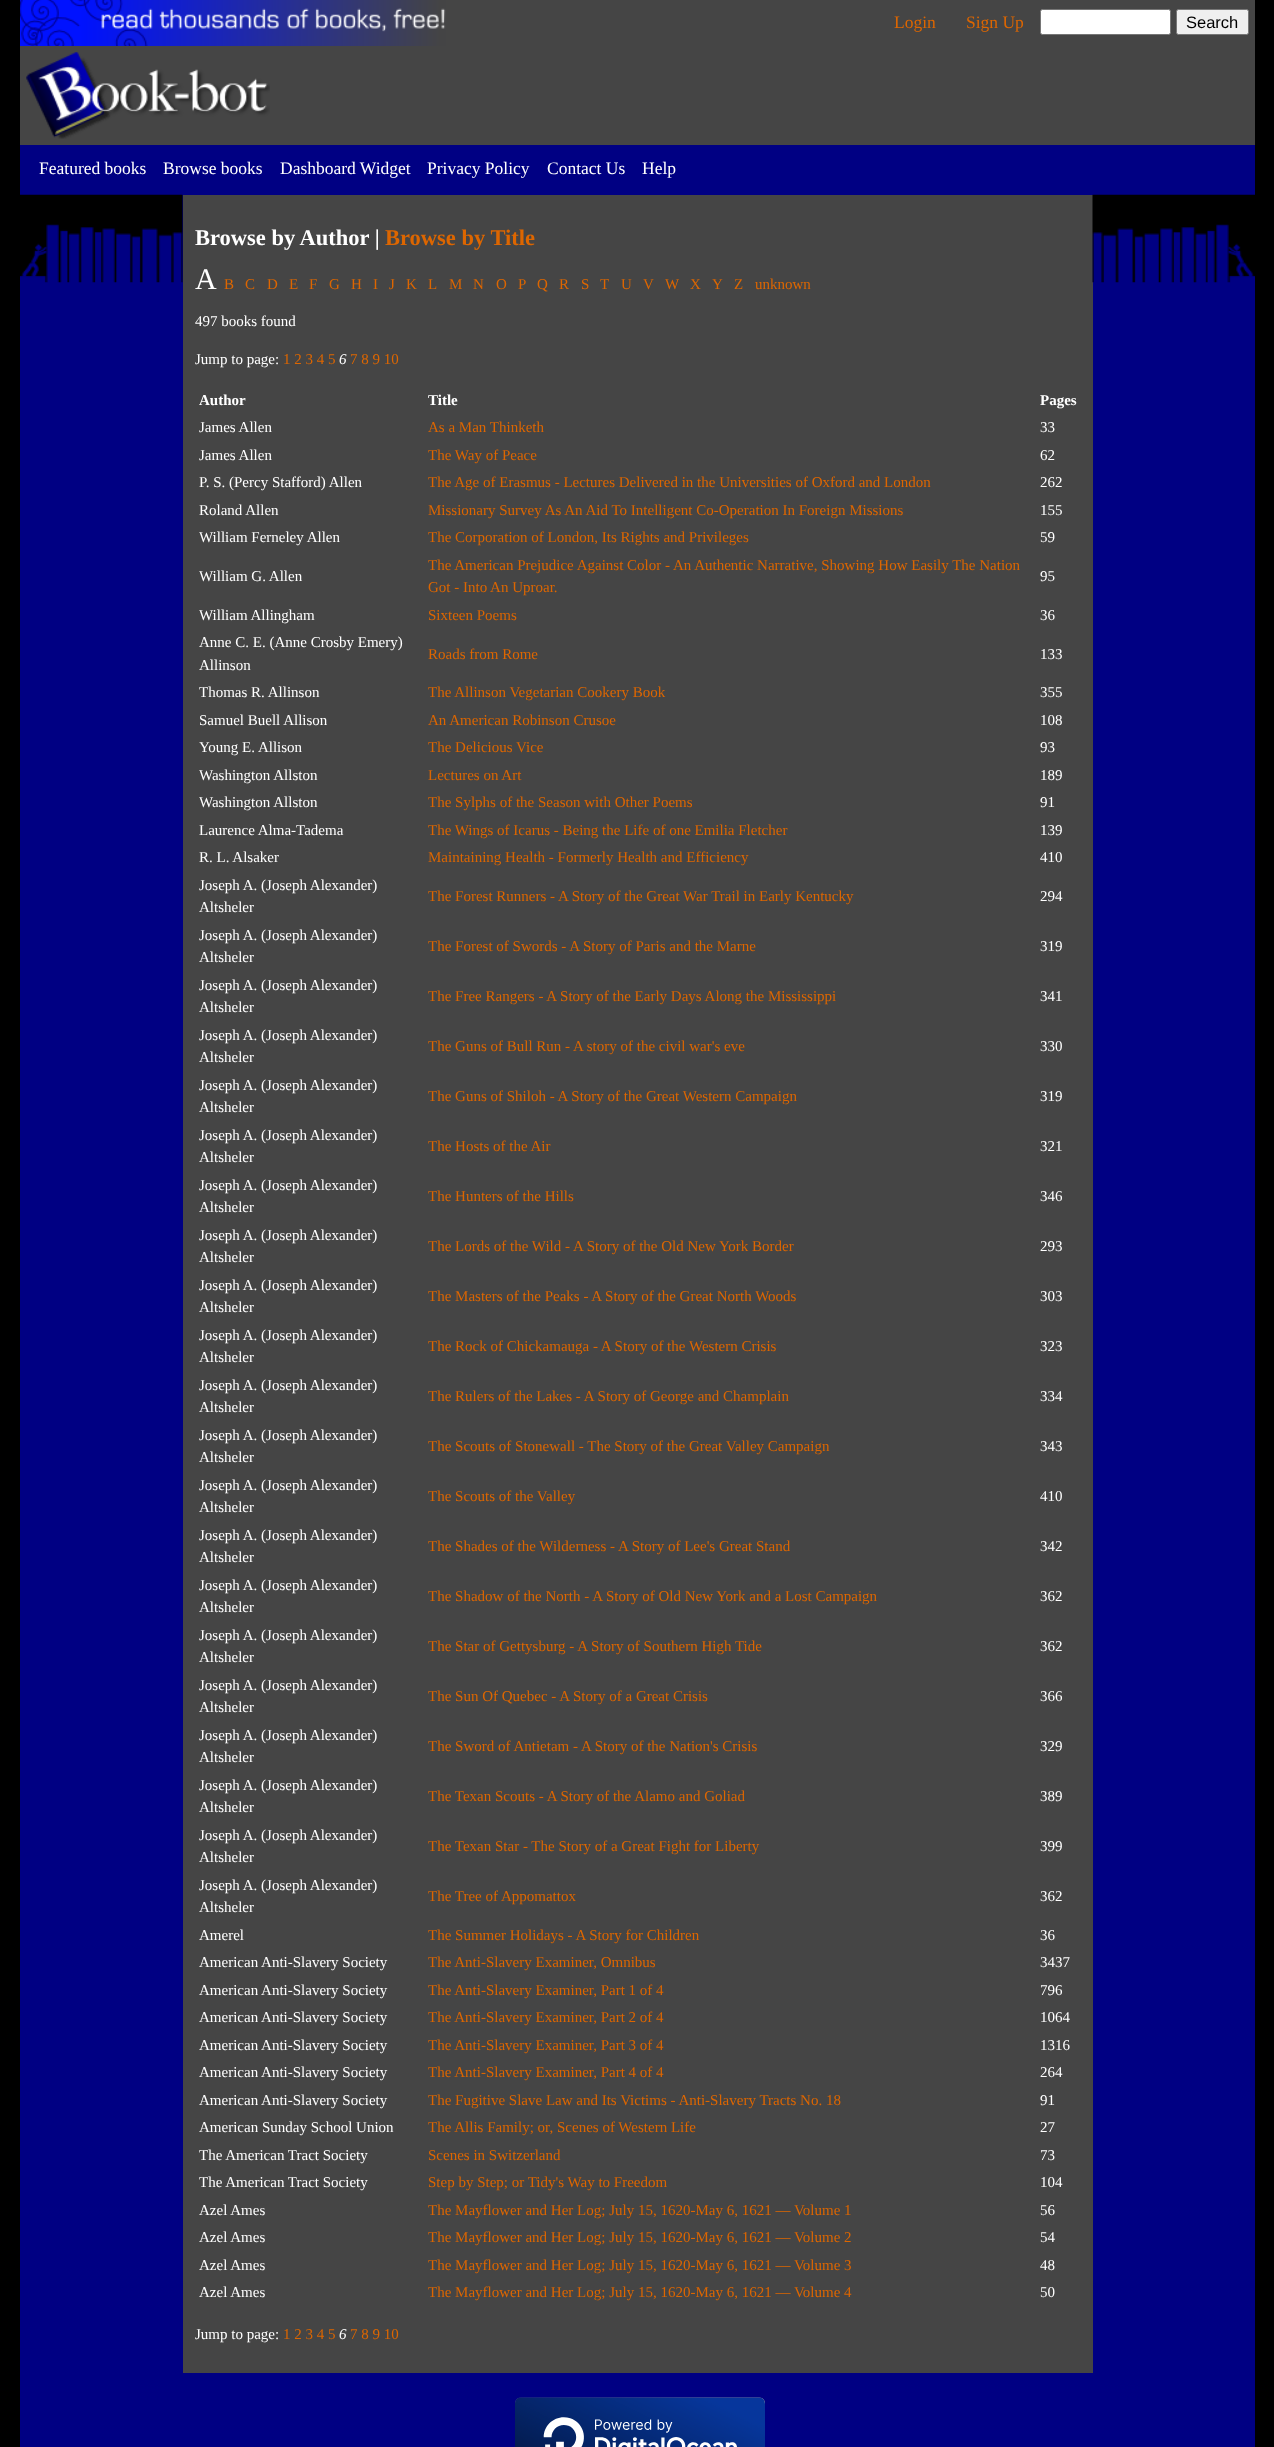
<svg xmlns="http://www.w3.org/2000/svg" width="1274" height="2447">
	<rect width="100%" height="100%" fill="#000000" />
	<rect x="20" y="145" width="1235" height="2302" fill="#000083" />
	<rect x="20" y="0" width="1235" height="145" fill="#454545" />
	<image x="26" y="52" width="244" height="87" href="assets/img1.png" />
	<image x="20" y="0" width="426" height="46" href="assets/img2.png" />
	<g font-family="Liberation Serif" font-size="17.5" fill="#DD6600">
		<text x="894" y="28">Login</text>
		<text x="966" y="28">Sign Up</text>
	</g>
	<rect x="1040.5" y="9.5" width="130" height="25" rx="2" fill="#FFFFFF" stroke="#767676" />
	<rect x="1176.5" y="9.5" width="72" height="25" rx="2" fill="#EFEFEF" stroke="#767676" />
	<text x="1186" y="28" font-family="Liberation Sans" font-size="16.5" fill="#000000">Search</text>
	<g font-family="Liberation Serif" font-size="17.5" fill="#FFFFFF">
		<text x="39" y="174">Featured books</text>
		<text x="163" y="174">Browse books</text>
		<text x="280" y="174">Dashboard Widget</text>
		<text x="427" y="174">Privacy Policy</text>
		<text x="547" y="174">Contact Us</text>
		<text x="642" y="174">Help</text>
	</g>
	<image x="20" y="194" width="163" height="89" href="assets/img3.png" />
	<rect x="183" y="195" width="910" height="2178" fill="#454545" />
	<text x="195" y="245" font-family="Liberation Serif" font-size="22.5" font-weight="700" fill="#FFFFFF">Browse by Author |</text>
	<text x="385" y="245" font-family="Liberation Serif" font-size="22.5" font-weight="700" fill="#DD6600">Browse by Title</text>
	<text x="195" y="289" font-family="Liberation Serif" font-size="30" fill="#FFFFFF">A</text>
	<g font-family="Liberation Serif" font-size="15" fill="#DD6600">
		<text x="224" y="289">B</text>
		<text x="245" y="289">C</text>
		<text x="267" y="289">D</text>
		<text x="289" y="289">E</text>
		<text x="309" y="289">F</text>
		<text x="329" y="289">G</text>
		<text x="351" y="289">H</text>
		<text x="373" y="289">I</text>
		<text x="389" y="289">J</text>
		<text x="406" y="289">K</text>
		<text x="428" y="289">L</text>
		<text x="449" y="289">M</text>
		<text x="473" y="289">N</text>
		<text x="496" y="289">O</text>
		<text x="518" y="289">P</text>
		<text x="537" y="289">Q</text>
		<text x="559" y="289">R</text>
		<text x="581" y="289">S</text>
		<text x="600" y="289">T</text>
		<text x="621" y="289">U</text>
		<text x="643" y="289">V</text>
		<text x="665" y="289">W</text>
		<text x="690" y="289">X</text>
		<text x="712" y="289">Y</text>
		<text x="734" y="289">Z</text>
		<text x="755" y="289">unknown</text>
	</g>
	<g font-family="Liberation Serif" font-size="15" fill="#FFFFFF">
		<text x="195" y="326">497 books found</text>
		<text x="195" y="364">Jump to page:</text>
	</g>
	<text x="283" y="364" font-family="Liberation Serif" font-size="15" fill="#DD6600">1 2 3 4 5</text>
	<text x="339" y="364" font-family="Liberation Serif" font-size="15" font-style="italic" fill="#FFFFFF">6</text>
	<text x="350" y="364" font-family="Liberation Serif" font-size="15" fill="#DD6600">7 8 9 10</text>
	<g font-family="Liberation Serif" font-size="15" font-weight="700" fill="#FFFFFF">
		<text x="199" y="405">Author</text>
		<text x="428" y="405">Title</text>
		<text x="1040" y="405">Pages</text>
	</g>
	<text x="199" y="432" font-family="Liberation Serif" font-size="15" fill="#FFFFFF">James Allen</text>
	<text x="428" y="432" font-family="Liberation Serif" font-size="15" fill="#DD6600">As a Man Thinketh</text>
	<g font-family="Liberation Serif" font-size="15" fill="#FFFFFF">
		<text x="1040" y="432">33</text>
		<text x="199" y="460">James Allen</text>
	</g>
	<text x="428" y="460" font-family="Liberation Serif" font-size="15" fill="#DD6600">The Way of Peace</text>
	<g font-family="Liberation Serif" font-size="15" fill="#FFFFFF">
		<text x="1040" y="460">62</text>
		<text x="199" y="487">P. S. (Percy Stafford) Allen</text>
	</g>
	<text x="428" y="487" font-family="Liberation Serif" font-size="15" fill="#DD6600">The Age of Erasmus - Lectures Delivered in the Universities of Oxford and London</text>
	<g font-family="Liberation Serif" font-size="15" fill="#FFFFFF">
		<text x="1040" y="487">262</text>
		<text x="199" y="515">Roland Allen</text>
	</g>
	<text x="428" y="515" font-family="Liberation Serif" font-size="15" fill="#DD6600">Missionary Survey As An Aid To Intelligent Co-Operation In Foreign Missions</text>
	<g font-family="Liberation Serif" font-size="15" fill="#FFFFFF">
		<text x="1040" y="515">155</text>
		<text x="199" y="542">William Ferneley Allen</text>
	</g>
	<text x="428" y="542" font-family="Liberation Serif" font-size="15" fill="#DD6600">The Corporation of London, Its Rights and Privileges</text>
	<g font-family="Liberation Serif" font-size="15" fill="#FFFFFF">
		<text x="1040" y="542">59</text>
		<text x="199" y="581">William G. Allen</text>
	</g>
	<g font-family="Liberation Serif" font-size="15" fill="#DD6600">
		<text x="428" y="570">The American Prejudice Against Color - An Authentic Narrative, Showing How Easily The Nation</text>
		<text x="428" y="592">Got - Into An Uproar.</text>
	</g>
	<g font-family="Liberation Serif" font-size="15" fill="#FFFFFF">
		<text x="1040" y="581">95</text>
		<text x="199" y="620">William Allingham</text>
	</g>
	<text x="428" y="620" font-family="Liberation Serif" font-size="15" fill="#DD6600">Sixteen Poems</text>
	<g font-family="Liberation Serif" font-size="15" fill="#FFFFFF">
		<text x="1040" y="620">36</text>
		<text x="199" y="647">Anne C. E. (Anne Crosby Emery)</text>
		<text x="199" y="670">Allinson</text>
	</g>
	<text x="428" y="659" font-family="Liberation Serif" font-size="15" fill="#DD6600">Roads from Rome</text>
	<g font-family="Liberation Serif" font-size="15" fill="#FFFFFF">
		<text x="1040" y="659">133</text>
		<text x="199" y="697">Thomas R. Allinson</text>
	</g>
	<text x="428" y="697" font-family="Liberation Serif" font-size="15" fill="#DD6600">The Allinson Vegetarian Cookery Book</text>
	<g font-family="Liberation Serif" font-size="15" fill="#FFFFFF">
		<text x="1040" y="697">355</text>
		<text x="199" y="725">Samuel Buell Allison</text>
	</g>
	<text x="428" y="725" font-family="Liberation Serif" font-size="15" fill="#DD6600">An American Robinson Crusoe</text>
	<g font-family="Liberation Serif" font-size="15" fill="#FFFFFF">
		<text x="1040" y="725">108</text>
		<text x="199" y="752">Young E. Allison</text>
	</g>
	<text x="428" y="752" font-family="Liberation Serif" font-size="15" fill="#DD6600">The Delicious Vice</text>
	<g font-family="Liberation Serif" font-size="15" fill="#FFFFFF">
		<text x="1040" y="752">93</text>
		<text x="199" y="780">Washington Allston</text>
	</g>
	<text x="428" y="780" font-family="Liberation Serif" font-size="15" fill="#DD6600">Lectures on Art</text>
	<g font-family="Liberation Serif" font-size="15" fill="#FFFFFF">
		<text x="1040" y="780">189</text>
		<text x="199" y="807">Washington Allston</text>
	</g>
	<text x="428" y="807" font-family="Liberation Serif" font-size="15" fill="#DD6600">The Sylphs of the Season with Other Poems</text>
	<g font-family="Liberation Serif" font-size="15" fill="#FFFFFF">
		<text x="1040" y="807">91</text>
		<text x="199" y="835">Laurence Alma-Tadema</text>
	</g>
	<text x="428" y="835" font-family="Liberation Serif" font-size="15" fill="#DD6600">The Wings of Icarus - Being the Life of one Emilia Fletcher</text>
	<g font-family="Liberation Serif" font-size="15" fill="#FFFFFF">
		<text x="1040" y="835">139</text>
		<text x="199" y="862">R. L. Alsaker</text>
	</g>
	<text x="428" y="862" font-family="Liberation Serif" font-size="15" fill="#DD6600">Maintaining Health - Formerly Health and Efficiency</text>
	<g font-family="Liberation Serif" font-size="15" fill="#FFFFFF">
		<text x="1040" y="862">410</text>
		<text x="199" y="890">Joseph A. (Joseph Alexander)</text>
		<text x="199" y="912">Altsheler</text>
	</g>
	<text x="428" y="901" font-family="Liberation Serif" font-size="15" fill="#DD6600">The Forest Runners - A Story of the Great War Trail in Early Kentucky</text>
	<g font-family="Liberation Serif" font-size="15" fill="#FFFFFF">
		<text x="1040" y="901">294</text>
		<text x="199" y="940">Joseph A. (Joseph Alexander)</text>
		<text x="199" y="962">Altsheler</text>
	</g>
	<text x="428" y="951" font-family="Liberation Serif" font-size="15" fill="#DD6600">The Forest of Swords - A Story of Paris and the Marne</text>
	<g font-family="Liberation Serif" font-size="15" fill="#FFFFFF">
		<text x="1040" y="951">319</text>
		<text x="199" y="990">Joseph A. (Joseph Alexander)</text>
		<text x="199" y="1012">Altsheler</text>
	</g>
	<text x="428" y="1001" font-family="Liberation Serif" font-size="15" fill="#DD6600">The Free Rangers - A Story of the Early Days Along the Mississippi</text>
	<g font-family="Liberation Serif" font-size="15" fill="#FFFFFF">
		<text x="1040" y="1001">341</text>
		<text x="199" y="1040">Joseph A. (Joseph Alexander)</text>
		<text x="199" y="1062">Altsheler</text>
	</g>
	<text x="428" y="1051" font-family="Liberation Serif" font-size="15" fill="#DD6600">The Guns of Bull Run - A story of the civil war's eve</text>
	<g font-family="Liberation Serif" font-size="15" fill="#FFFFFF">
		<text x="1040" y="1051">330</text>
		<text x="199" y="1090">Joseph A. (Joseph Alexander)</text>
		<text x="199" y="1112">Altsheler</text>
	</g>
	<text x="428" y="1101" font-family="Liberation Serif" font-size="15" fill="#DD6600">The Guns of Shiloh - A Story of the Great Western Campaign</text>
	<g font-family="Liberation Serif" font-size="15" fill="#FFFFFF">
		<text x="1040" y="1101">319</text>
		<text x="199" y="1140">Joseph A. (Joseph Alexander)</text>
		<text x="199" y="1162">Altsheler</text>
	</g>
	<text x="428" y="1151" font-family="Liberation Serif" font-size="15" fill="#DD6600">The Hosts of the Air</text>
	<g font-family="Liberation Serif" font-size="15" fill="#FFFFFF">
		<text x="1040" y="1151">321</text>
		<text x="199" y="1190">Joseph A. (Joseph Alexander)</text>
		<text x="199" y="1212">Altsheler</text>
	</g>
	<text x="428" y="1201" font-family="Liberation Serif" font-size="15" fill="#DD6600">The Hunters of the Hills</text>
	<g font-family="Liberation Serif" font-size="15" fill="#FFFFFF">
		<text x="1040" y="1201">346</text>
		<text x="199" y="1240">Joseph A. (Joseph Alexander)</text>
		<text x="199" y="1262">Altsheler</text>
	</g>
	<text x="428" y="1251" font-family="Liberation Serif" font-size="15" fill="#DD6600">The Lords of the Wild - A Story of the Old New York Border</text>
	<g font-family="Liberation Serif" font-size="15" fill="#FFFFFF">
		<text x="1040" y="1251">293</text>
		<text x="199" y="1290">Joseph A. (Joseph Alexander)</text>
		<text x="199" y="1312">Altsheler</text>
	</g>
	<text x="428" y="1301" font-family="Liberation Serif" font-size="15" fill="#DD6600">The Masters of the Peaks - A Story of the Great North Woods</text>
	<g font-family="Liberation Serif" font-size="15" fill="#FFFFFF">
		<text x="1040" y="1301">303</text>
		<text x="199" y="1340">Joseph A. (Joseph Alexander)</text>
		<text x="199" y="1362">Altsheler</text>
	</g>
	<text x="428" y="1351" font-family="Liberation Serif" font-size="15" fill="#DD6600">The Rock of Chickamauga - A Story of the Western Crisis</text>
	<g font-family="Liberation Serif" font-size="15" fill="#FFFFFF">
		<text x="1040" y="1351">323</text>
		<text x="199" y="1390">Joseph A. (Joseph Alexander)</text>
		<text x="199" y="1412">Altsheler</text>
	</g>
	<text x="428" y="1401" font-family="Liberation Serif" font-size="15" fill="#DD6600">The Rulers of the Lakes - A Story of George and Champlain</text>
	<g font-family="Liberation Serif" font-size="15" fill="#FFFFFF">
		<text x="1040" y="1401">334</text>
		<text x="199" y="1440">Joseph A. (Joseph Alexander)</text>
		<text x="199" y="1462">Altsheler</text>
	</g>
	<text x="428" y="1451" font-family="Liberation Serif" font-size="15" fill="#DD6600">The Scouts of Stonewall - The Story of the Great Valley Campaign</text>
	<g font-family="Liberation Serif" font-size="15" fill="#FFFFFF">
		<text x="1040" y="1451">343</text>
		<text x="199" y="1490">Joseph A. (Joseph Alexander)</text>
		<text x="199" y="1512">Altsheler</text>
	</g>
	<text x="428" y="1501" font-family="Liberation Serif" font-size="15" fill="#DD6600">The Scouts of the Valley</text>
	<g font-family="Liberation Serif" font-size="15" fill="#FFFFFF">
		<text x="1040" y="1501">410</text>
		<text x="199" y="1540">Joseph A. (Joseph Alexander)</text>
		<text x="199" y="1562">Altsheler</text>
	</g>
	<text x="428" y="1551" font-family="Liberation Serif" font-size="15" fill="#DD6600">The Shades of the Wilderness - A Story of Lee's Great Stand</text>
	<g font-family="Liberation Serif" font-size="15" fill="#FFFFFF">
		<text x="1040" y="1551">342</text>
		<text x="199" y="1590">Joseph A. (Joseph Alexander)</text>
		<text x="199" y="1612">Altsheler</text>
	</g>
	<text x="428" y="1601" font-family="Liberation Serif" font-size="15" fill="#DD6600">The Shadow of the North - A Story of Old New York and a Lost Campaign</text>
	<g font-family="Liberation Serif" font-size="15" fill="#FFFFFF">
		<text x="1040" y="1601">362</text>
		<text x="199" y="1640">Joseph A. (Joseph Alexander)</text>
		<text x="199" y="1662">Altsheler</text>
	</g>
	<text x="428" y="1651" font-family="Liberation Serif" font-size="15" fill="#DD6600">The Star of Gettysburg - A Story of Southern High Tide</text>
	<g font-family="Liberation Serif" font-size="15" fill="#FFFFFF">
		<text x="1040" y="1651">362</text>
		<text x="199" y="1690">Joseph A. (Joseph Alexander)</text>
		<text x="199" y="1712">Altsheler</text>
	</g>
	<text x="428" y="1701" font-family="Liberation Serif" font-size="15" fill="#DD6600">The Sun Of Quebec - A Story of a Great Crisis</text>
	<g font-family="Liberation Serif" font-size="15" fill="#FFFFFF">
		<text x="1040" y="1701">366</text>
		<text x="199" y="1740">Joseph A. (Joseph Alexander)</text>
		<text x="199" y="1762">Altsheler</text>
	</g>
	<text x="428" y="1751" font-family="Liberation Serif" font-size="15" fill="#DD6600">The Sword of Antietam - A Story of the Nation's Crisis</text>
	<g font-family="Liberation Serif" font-size="15" fill="#FFFFFF">
		<text x="1040" y="1751">329</text>
		<text x="199" y="1790">Joseph A. (Joseph Alexander)</text>
		<text x="199" y="1812">Altsheler</text>
	</g>
	<text x="428" y="1801" font-family="Liberation Serif" font-size="15" fill="#DD6600">The Texan Scouts - A Story of the Alamo and Goliad</text>
	<g font-family="Liberation Serif" font-size="15" fill="#FFFFFF">
		<text x="1040" y="1801">389</text>
		<text x="199" y="1840">Joseph A. (Joseph Alexander)</text>
		<text x="199" y="1862">Altsheler</text>
	</g>
	<text x="428" y="1851" font-family="Liberation Serif" font-size="15" fill="#DD6600">The Texan Star - The Story of a Great Fight for Liberty</text>
	<g font-family="Liberation Serif" font-size="15" fill="#FFFFFF">
		<text x="1040" y="1851">399</text>
		<text x="199" y="1890">Joseph A. (Joseph Alexander)</text>
		<text x="199" y="1912">Altsheler</text>
	</g>
	<text x="428" y="1901" font-family="Liberation Serif" font-size="15" fill="#DD6600">The Tree of Appomattox</text>
	<g font-family="Liberation Serif" font-size="15" fill="#FFFFFF">
		<text x="1040" y="1901">362</text>
		<text x="199" y="1940">Amerel</text>
	</g>
	<text x="428" y="1940" font-family="Liberation Serif" font-size="15" fill="#DD6600">The Summer Holidays - A Story for Children</text>
	<g font-family="Liberation Serif" font-size="15" fill="#FFFFFF">
		<text x="1040" y="1940">36</text>
		<text x="199" y="1967">American Anti-Slavery Society</text>
	</g>
	<text x="428" y="1967" font-family="Liberation Serif" font-size="15" fill="#DD6600">The Anti-Slavery Examiner, Omnibus</text>
	<g font-family="Liberation Serif" font-size="15" fill="#FFFFFF">
		<text x="1040" y="1967">3437</text>
		<text x="199" y="1995">American Anti-Slavery Society</text>
	</g>
	<text x="428" y="1995" font-family="Liberation Serif" font-size="15" fill="#DD6600">The Anti-Slavery Examiner, Part 1 of 4</text>
	<g font-family="Liberation Serif" font-size="15" fill="#FFFFFF">
		<text x="1040" y="1995">796</text>
		<text x="199" y="2022">American Anti-Slavery Society</text>
	</g>
	<text x="428" y="2022" font-family="Liberation Serif" font-size="15" fill="#DD6600">The Anti-Slavery Examiner, Part 2 of 4</text>
	<g font-family="Liberation Serif" font-size="15" fill="#FFFFFF">
		<text x="1040" y="2022">1064</text>
		<text x="199" y="2050">American Anti-Slavery Society</text>
	</g>
	<text x="428" y="2050" font-family="Liberation Serif" font-size="15" fill="#DD6600">The Anti-Slavery Examiner, Part 3 of 4</text>
	<g font-family="Liberation Serif" font-size="15" fill="#FFFFFF">
		<text x="1040" y="2050">1316</text>
		<text x="199" y="2077">American Anti-Slavery Society</text>
	</g>
	<text x="428" y="2077" font-family="Liberation Serif" font-size="15" fill="#DD6600">The Anti-Slavery Examiner, Part 4 of 4</text>
	<g font-family="Liberation Serif" font-size="15" fill="#FFFFFF">
		<text x="1040" y="2077">264</text>
		<text x="199" y="2105">American Anti-Slavery Society</text>
	</g>
	<text x="428" y="2105" font-family="Liberation Serif" font-size="15" fill="#DD6600">The Fugitive Slave Law and Its Victims - Anti-Slavery Tracts No. 18</text>
	<g font-family="Liberation Serif" font-size="15" fill="#FFFFFF">
		<text x="1040" y="2105">91</text>
		<text x="199" y="2132">American Sunday School Union</text>
	</g>
	<text x="428" y="2132" font-family="Liberation Serif" font-size="15" fill="#DD6600">The Allis Family; or, Scenes of Western Life</text>
	<g font-family="Liberation Serif" font-size="15" fill="#FFFFFF">
		<text x="1040" y="2132">27</text>
		<text x="199" y="2160">The American Tract Society</text>
	</g>
	<text x="428" y="2160" font-family="Liberation Serif" font-size="15" fill="#DD6600">Scenes in Switzerland</text>
	<g font-family="Liberation Serif" font-size="15" fill="#FFFFFF">
		<text x="1040" y="2160">73</text>
		<text x="199" y="2187">The American Tract Society</text>
	</g>
	<text x="428" y="2187" font-family="Liberation Serif" font-size="15" fill="#DD6600">Step by Step; or Tidy's Way to Freedom</text>
	<g font-family="Liberation Serif" font-size="15" fill="#FFFFFF">
		<text x="1040" y="2187">104</text>
		<text x="199" y="2215">Azel Ames</text>
	</g>
	<text x="428" y="2215" font-family="Liberation Serif" font-size="15" fill="#DD6600">The Mayflower and Her Log; July 15, 1620-May 6, 1621 — Volume 1</text>
	<g font-family="Liberation Serif" font-size="15" fill="#FFFFFF">
		<text x="1040" y="2215">56</text>
		<text x="199" y="2242">Azel Ames</text>
	</g>
	<text x="428" y="2242" font-family="Liberation Serif" font-size="15" fill="#DD6600">The Mayflower and Her Log; July 15, 1620-May 6, 1621 — Volume 2</text>
	<g font-family="Liberation Serif" font-size="15" fill="#FFFFFF">
		<text x="1040" y="2242">54</text>
		<text x="199" y="2270">Azel Ames</text>
	</g>
	<text x="428" y="2270" font-family="Liberation Serif" font-size="15" fill="#DD6600">The Mayflower and Her Log; July 15, 1620-May 6, 1621 — Volume 3</text>
	<g font-family="Liberation Serif" font-size="15" fill="#FFFFFF">
		<text x="1040" y="2270">48</text>
		<text x="199" y="2297">Azel Ames</text>
	</g>
	<text x="428" y="2297" font-family="Liberation Serif" font-size="15" fill="#DD6600">The Mayflower and Her Log; July 15, 1620-May 6, 1621 — Volume 4</text>
	<g font-family="Liberation Serif" font-size="15" fill="#FFFFFF">
		<text x="1040" y="2297">50</text>
		<text x="195" y="2339">Jump to page:</text>
	</g>
	<text x="283" y="2339" font-family="Liberation Serif" font-size="15" fill="#DD6600">1 2 3 4 5</text>
	<text x="339" y="2339" font-family="Liberation Serif" font-size="15" font-style="italic" fill="#FFFFFF">6</text>
	<text x="350" y="2339" font-family="Liberation Serif" font-size="15" fill="#DD6600">7 8 9 10</text>
	<image x="1092" y="194" width="163" height="89" href="assets/img4.png" />
	<image x="515" y="2397" width="250" height="50" href="assets/img5.png" />
</svg>
